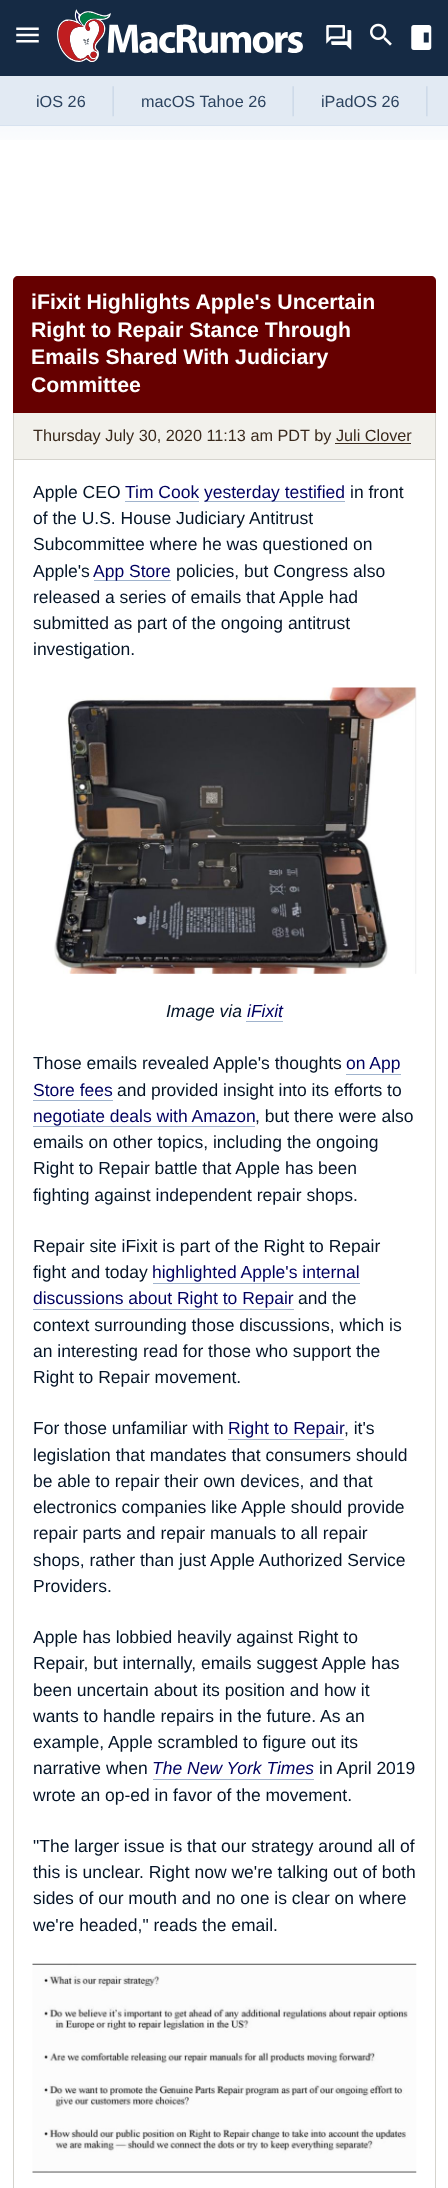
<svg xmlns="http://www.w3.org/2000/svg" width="448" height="2188">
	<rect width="100%" height="100%" fill="#FFFFFF" />
	<image x="0" y="126" width="448" height="14" href="assets/img1.png" />
	<rect x="0" y="0" width="448" height="76" fill="#152A44" />
	<image x="16" y="27" width="23" height="16" href="assets/img2.png" />
	<image x="57" y="9" width="246" height="53" href="assets/img3.png" />
	<image x="326" y="25" width="26" height="25" href="assets/img4.png" />
	<image x="370" y="23" width="22" height="23" href="assets/img5.png" />
	<image x="411" y="25" width="21" height="25" href="assets/img6.png" />
	<rect x="0" y="76" width="448" height="49" fill="#E2EAF3" />
	<rect x="0" y="125" width="448" height="1" fill="#D7E2EF" />
	<image x="112" y="86" width="2" height="31" href="assets/img7.png" />
	<text x="36" y="107" font-family="Liberation Sans" font-size="16.25" fill="#2C435F">iOS 26</text>
	<image x="292" y="86" width="2" height="31" href="assets/img7.png" />
	<text x="141" y="107" font-family="Liberation Sans" font-size="16.25" fill="#2C435F">macOS Tahoe 26</text>
	<image x="426" y="86" width="2" height="31" href="assets/img8.png" />
	<text x="321" y="107" font-family="Liberation Sans" font-size="16.25" fill="#2C435F">iPadOS 26</text>
	<path d="M18 276H431C434 276 436 278 436 281V413H13V281C13 278 15 276 18 276Z" fill="#660000" />
	<g font-family="Liberation Sans" font-size="21.25" font-weight="700" fill="#FFFFFF">
		<text x="31" y="309">iFixit Highlights Apple's Uncertain</text>
		<text x="31" y="337">Right to Repair Stance Through</text>
		<text x="31" y="364">Emails Shared With Judiciary</text>
		<text x="31" y="392">Committee</text>
	</g>
	<rect x="14" y="413" width="421" height="46" fill="#F2F1EC" />
	<rect x="435" y="413" width="1" height="46" fill="#D5D3CD" />
	<rect x="13" y="413" width="1" height="46" fill="#D5D3CD" />
	<text x="33" y="441" font-family="Liberation Sans" font-size="16.25" fill="#39291C">Thursday July 30, 2020 11:13 am PDT by Juli Clover</text>
	<rect x="335" y="443" width="76" height="1" fill="#39291C" />
	<rect x="13" y="459" width="423" height="1" fill="#D5D3CD" />
	<rect x="435" y="459" width="1" height="1729" fill="#D5D3CD" />
	<rect x="13" y="459" width="1" height="1729" fill="#D5D3CD" />
	<text x="33" y="498" font-family="Liberation Sans" font-size="17.5" fill="#041427">Apple CEO</text>
	<text x="125" y="498" font-family="Liberation Sans" font-size="17.5" fill="#000060">Tim Cook</text>
	<rect x="125" y="501" width="74" height="1" fill="#A0B3CD" />
	<rect x="204" y="501" width="141" height="1" fill="#A0B3CD" />
	<text x="204" y="498" font-family="Liberation Sans" font-size="17.5" fill="#000060">yesterday testified</text>
	<g font-family="Liberation Sans" font-size="17.5" fill="#041427">
		<text x="350" y="498">in front</text>
		<text x="33" y="524">of the U.S. House Judiciary Antitrust</text>
		<text x="33" y="550">Subcommittee where he was questioned on</text>
		<text x="33" y="577">Apple's</text>
	</g>
	<rect x="94" y="580" width="77" height="1" fill="#A0B3CD" />
	<text x="93" y="577" font-family="Liberation Sans" font-size="17.5" fill="#000060">App Store</text>
	<g font-family="Liberation Sans" font-size="17.5" fill="#041427">
		<text x="176" y="577">policies, but Congress also</text>
		<text x="33" y="603">released a series of emails that Apple had</text>
		<text x="33" y="629">submitted as part of the ongoing antitrust</text>
		<text x="33" y="655">investigation.</text>
	</g>
	<image x="54" y="687" width="363" height="287" href="assets/img9.png" />
	<text x="166" y="1017" font-family="Liberation Sans" font-size="17.5" font-style="italic" fill="#041427">Image via</text>
	<text x="247" y="1017" font-family="Liberation Sans" font-size="17.5" font-style="italic" fill="#000060">iFixit</text>
	<rect x="246" y="1021" width="37" height="1" fill="#A0B3CD" />
	<text x="33" y="1069" font-family="Liberation Sans" font-size="17.5" fill="#041427">Those emails revealed Apple's thoughts</text>
	<text x="346" y="1069" font-family="Liberation Sans" font-size="17.5" fill="#000060">on App</text>
	<rect x="346" y="1074" width="55" height="1" fill="#A0B3CD" />
	<text x="33" y="1096" font-family="Liberation Sans" font-size="17.5" fill="#000060">Store fees</text>
	<rect x="33" y="1100" width="80" height="1" fill="#A0B3CD" />
	<text x="117" y="1096" font-family="Liberation Sans" font-size="17.5" fill="#041427">and provided insight into its efforts to</text>
	<text x="33" y="1122" font-family="Liberation Sans" font-size="17.5" fill="#000060">negotiate deals with Amazon</text>
	<rect x="33" y="1126" width="222" height="1" fill="#A0B3CD" />
	<g font-family="Liberation Sans" font-size="17.5" fill="#041427">
		<text x="255" y="1122">, but there were also</text>
		<text x="33" y="1148">emails on other topics, including the ongoing</text>
		<text x="33" y="1174">Right to Repair battle that Apple has been</text>
		<text x="33" y="1201">fighting against independent repair shops.</text>
		<text x="33" y="1252">Repair site iFixit is part of the Right to Repair</text>
		<text x="33" y="1278">fight and today</text>
	</g>
	<text x="152" y="1278" font-family="Liberation Sans" font-size="17.5" fill="#000060">highlighted Apple's internal</text>
	<rect x="153" y="1283" width="207" height="1" fill="#A0B3CD" />
	<text x="33" y="1304" font-family="Liberation Sans" font-size="17.5" fill="#000060">discussions about Right to Repair</text>
	<rect x="33" y="1309" width="261" height="1" fill="#A0B3CD" />
	<g font-family="Liberation Sans" font-size="17.5" fill="#041427">
		<text x="298" y="1304">and the</text>
		<text x="33" y="1331">context surrounding those discussions, which is</text>
		<text x="33" y="1357">an interesting read for those who support the</text>
		<text x="33" y="1383">Right to Repair movement.</text>
		<text x="33" y="1434">For those unfamiliar with</text>
	</g>
	<text x="228" y="1434" font-family="Liberation Sans" font-size="17.5" fill="#000060">Right to Repair</text>
	<rect x="228" y="1439" width="116" height="1" fill="#A0B3CD" />
	<g font-family="Liberation Sans" font-size="17.5" fill="#041427">
		<text x="344" y="1434">, it's</text>
		<text x="33" y="1461">legislation that mandates that consumers should</text>
		<text x="33" y="1487">be able to repair their own devices, and that</text>
		<text x="33" y="1513">electronics companies like Apple should provide</text>
		<text x="33" y="1539">repair parts and repair manuals to all repair</text>
		<text x="33" y="1566">shops, rather than just Apple Authorized Service</text>
		<text x="33" y="1592">Providers.</text>
		<text x="33" y="1643">Apple has lobbied heavily against Right to</text>
		<text x="33" y="1669">Repair, but internally, emails suggest Apple has</text>
		<text x="33" y="1696">been uncertain about its position and how it</text>
		<text x="33" y="1722">wants to handle repairs in the future. As an</text>
		<text x="33" y="1748">example, Apple scrambled to figure out its</text>
		<text x="33" y="1774">narrative when</text>
	</g>
	<text x="152" y="1774" font-family="Liberation Sans" font-size="17.5" font-style="italic" fill="#000060">The New York Times</text>
	<rect x="153" y="1779" width="161" height="1" fill="#A0B3CD" />
	<g font-family="Liberation Sans" font-size="17.5" fill="#041427">
		<text x="319" y="1774">in April 2019</text>
		<text x="33" y="1801">wrote an op-ed in favor of the movement.</text>
		<text x="33" y="1852">"The larger issue is that our strategy around all of</text>
		<text x="33" y="1878">this is unclear. Right now we're talking out of both</text>
		<text x="33" y="1904">sides of our mouth and no one is clear on where</text>
		<text x="33" y="1931">we're headed," reads the email.</text>
	</g>
	<image x="32" y="1963" width="385" height="210" href="assets/img10.png" />
</svg>
